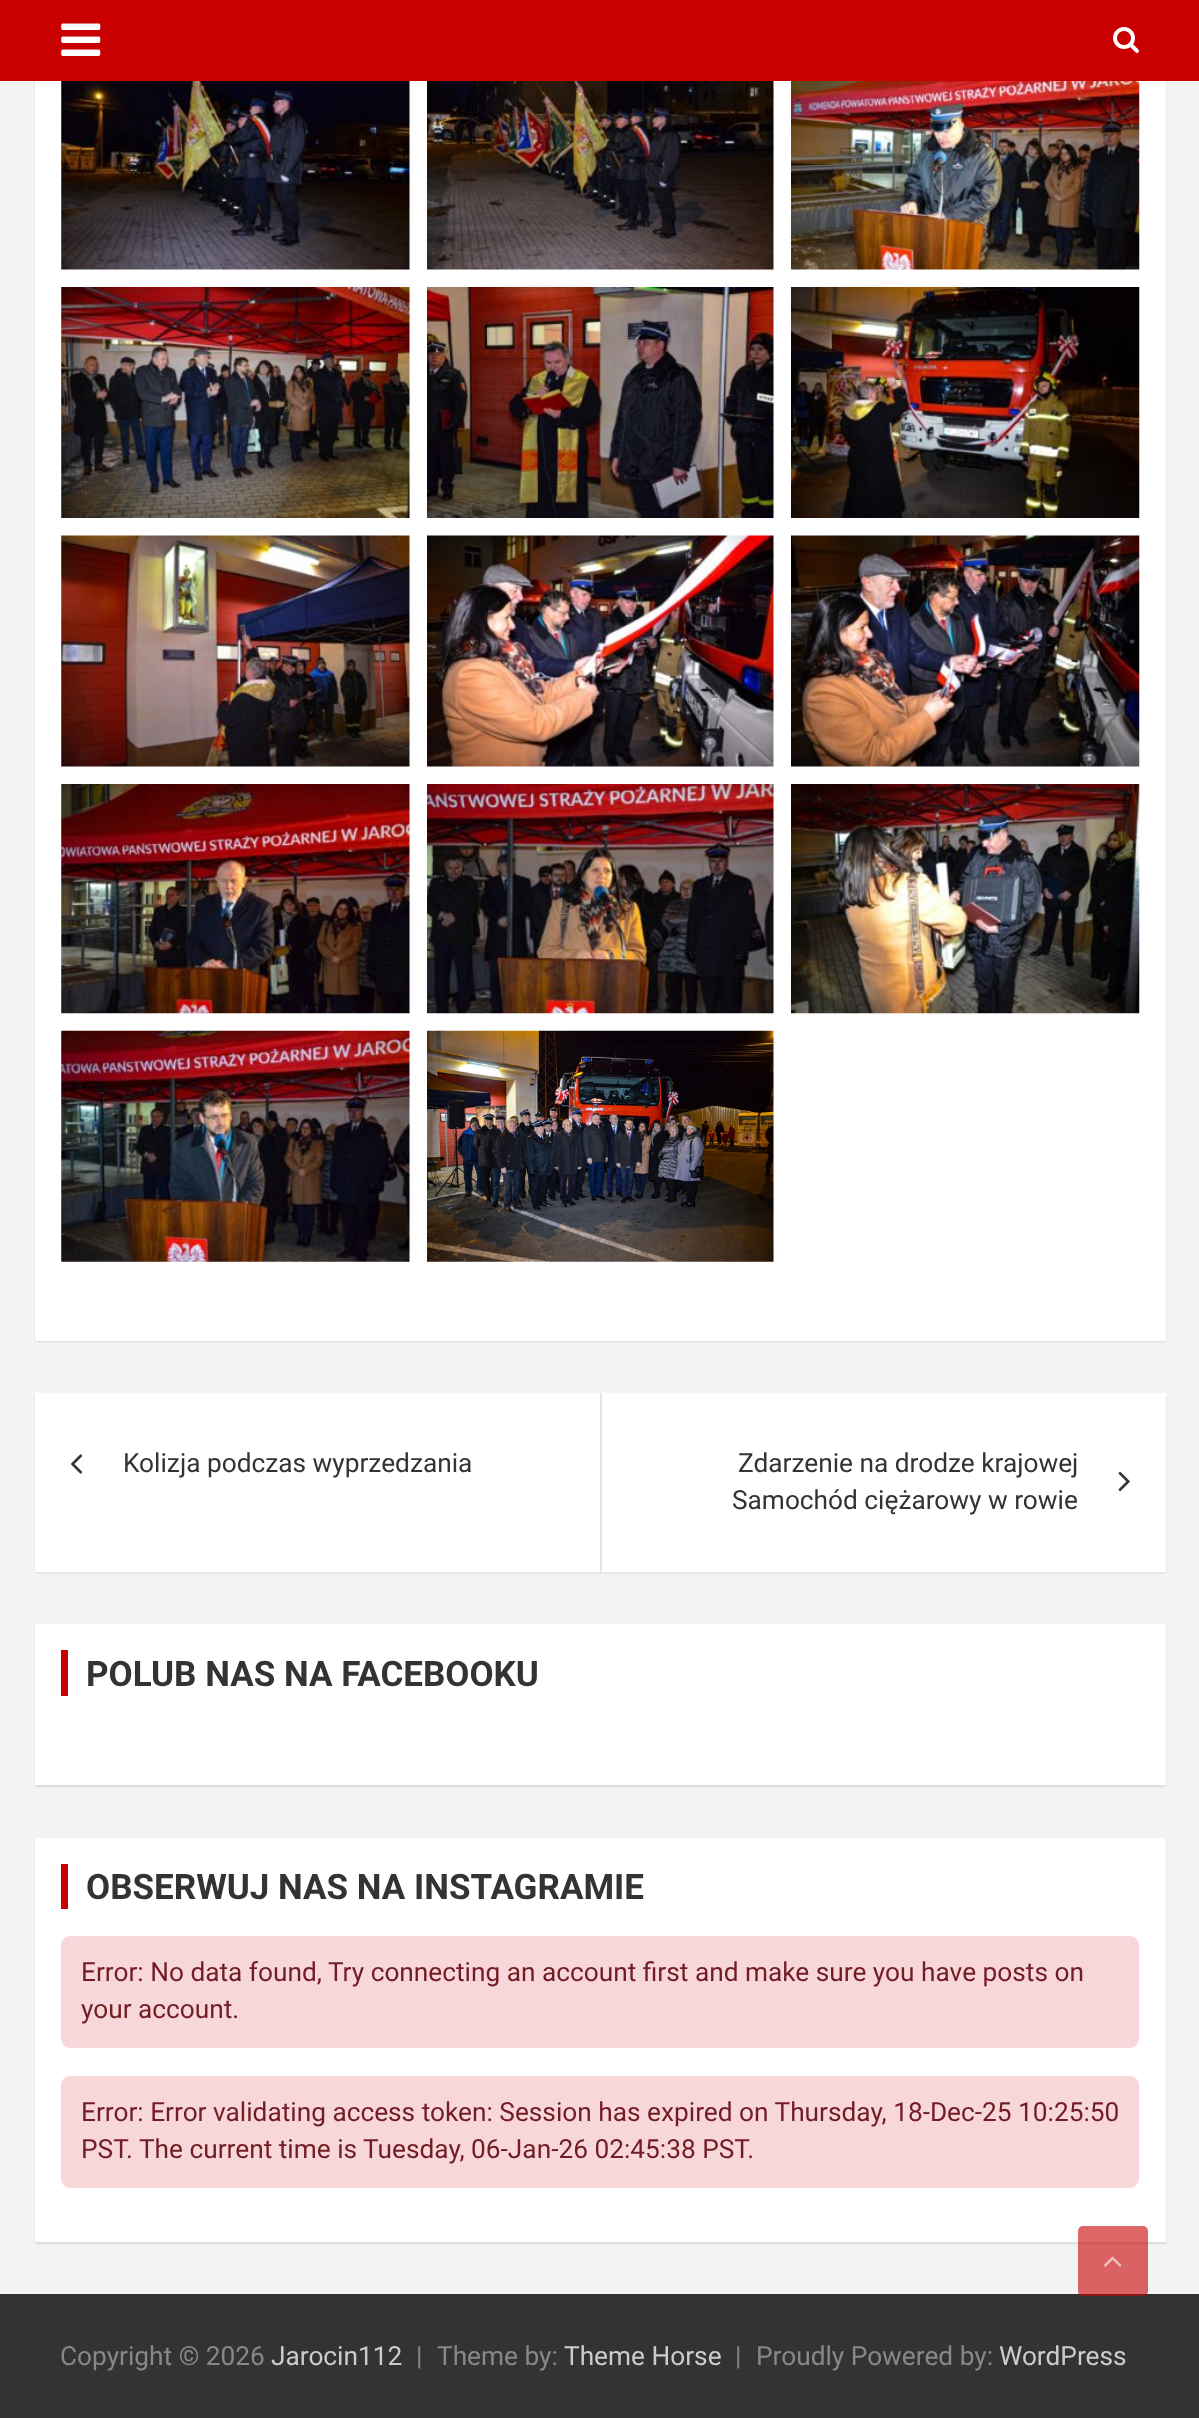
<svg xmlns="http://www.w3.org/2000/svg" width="1199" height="2418">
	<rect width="100%" height="100%" fill="#F4F4F4" />
	<rect x="35" y="-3" width="1131" height="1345" fill="#000000" fill-opacity="0.1" filter="blur(1px)" />
	<rect x="0" y="0" width="1199" height="81" fill="#C80000" />
	<image x="61" y="23" width="40" height="33" href="assets/img1.png" />
	<image x="1113" y="27" width="26" height="26" href="assets/img2.png" />
	<rect x="35" y="81" width="1131" height="1260" fill="#FFFFFF" />
	<image x="61" y="81" width="349" height="189" href="assets/img3.png" />
	<image x="427" y="81" width="347" height="189" href="assets/img4.png" />
	<image x="791" y="81" width="349" height="189" href="assets/img5.png" />
	<image x="61" y="287" width="349" height="231" href="assets/img6.png" />
	<image x="427" y="287" width="347" height="231" href="assets/img7.png" />
	<image x="791" y="287" width="349" height="231" href="assets/img8.png" />
	<image x="61" y="535" width="349" height="232" href="assets/img9.png" />
	<image x="427" y="535" width="347" height="232" href="assets/img10.png" />
	<image x="791" y="535" width="349" height="232" href="assets/img11.png" />
	<image x="61" y="784" width="349" height="230" href="assets/img12.png" />
	<image x="427" y="784" width="347" height="230" href="assets/img13.png" />
	<image x="791" y="784" width="349" height="230" href="assets/img14.png" />
	<image x="61" y="1030" width="349" height="232" href="assets/img15.png" />
	<image x="427" y="1030" width="347" height="232" href="assets/img16.png" />
	<rect x="35" y="1395" width="1131" height="178" fill="#000000" fill-opacity="0.1" filter="blur(1px)" />
	<rect x="35" y="1393" width="1131" height="179" fill="#FFFFFF" />
	<image x="71" y="1454" width="12" height="20" href="assets/img17.png" />
	<text x="123" y="1472" font-family="Roboto" font-size="26.25" fill="#333333">Kolizja podczas wyprzedzania</text>
	<rect x="600" y="1393" width="2" height="179" fill="#E6E6E6" />
	<text x="738" y="1472" font-family="Roboto" font-size="26.25" fill="#333333">Zdarzenie na drodze krajowej</text>
	<image x="1118" y="1471" width="12" height="21" href="assets/img18.png" />
	<text x="732" y="1509" font-family="Roboto" font-size="26.25" fill="#333333">Samochód ciężarowy w rowie</text>
	<rect x="35" y="1626" width="1131" height="161" fill="#000000" fill-opacity="0.1" filter="blur(1px)" />
	<rect x="35" y="1624" width="1131" height="161" fill="#FFFFFF" />
	<rect x="61" y="1650" width="7" height="46" fill="#C80000" />
	<text x="86" y="1686" font-family="Roboto" font-size="35" font-weight="700" fill="#333333">POLUB NAS NA FACEBOOKU</text>
	<rect x="35" y="1839" width="1131" height="405" fill="#000000" fill-opacity="0.1" filter="blur(1px)" />
	<rect x="35" y="1838" width="1131" height="404" fill="#FFFFFF" />
	<rect x="61" y="1864" width="7" height="45" fill="#C80000" />
	<text x="86" y="1899" font-family="Roboto" font-size="35" font-weight="700" fill="#333333">OBSERWUJ NAS NA INSTAGRAMIE</text>
	<rect x="61" y="1936" width="1078" height="112" rx="9" fill="#F8D7DA" />
	<g font-family="Roboto" font-size="26.25" fill="#721C24">
		<text x="81" y="1981">Error: No data found, Try connecting an account first and make sure you have posts on</text>
		<text x="81" y="2018">your account.</text>
	</g>
	<rect x="61" y="2076" width="1078" height="112" rx="9" fill="#F8D7DA" />
	<g font-family="Roboto" font-size="26.25" fill="#721C24">
		<text x="81" y="2121">Error: Error validating access token: Session has expired on Thursday, 18-Dec-25 10:25:50</text>
		<text x="81" y="2158">PST. The current time is Tuesday, 06-Jan-26 02:45:38 PST.</text>
	</g>
	<rect x="0" y="2294" width="1199" height="124" fill="#333333" />
	<rect x="1078" y="2226" width="70" height="70" rx="5" fill="#C80000" fill-opacity="0.6" />
	<image x="1103" y="2256" width="19" height="11" href="assets/img19.png" />
	<text x="60" y="2365" font-family="Roboto" font-size="26.25" fill="#888888">Copyright © 2026</text>
	<text x="271" y="2365" font-family="Roboto" font-size="26.25" fill="#CCCCCC">Jarocin112</text>
	<g font-family="Roboto" font-size="26.25" fill="#888888">
		<text x="416" y="2365">|</text>
		<text x="437" y="2365">Theme by:</text>
	</g>
	<text x="564" y="2365" font-family="Roboto" font-size="26.25" fill="#CCCCCC">Theme Horse</text>
	<g font-family="Roboto" font-size="26.25" fill="#888888">
		<text x="735" y="2365">|</text>
		<text x="756" y="2365">Proudly Powered by:</text>
	</g>
	<text x="999" y="2365" font-family="Roboto" font-size="26.25" fill="#CCCCCC">WordPress</text>
</svg>
